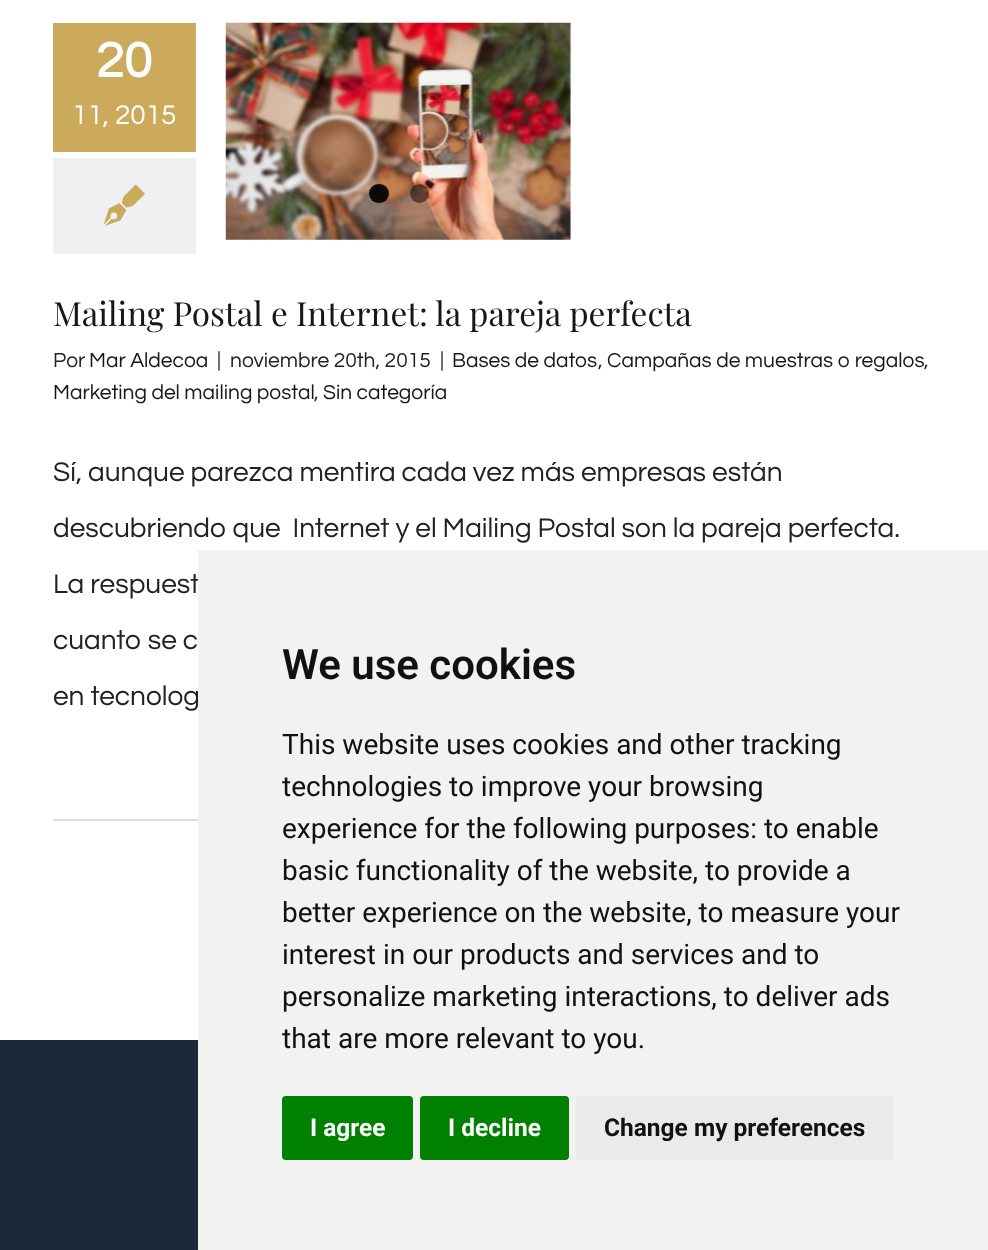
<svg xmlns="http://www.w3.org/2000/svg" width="988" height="1250">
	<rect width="100%" height="100%" fill="#FFFFFF" />
	<rect x="53" y="23" width="143" height="129" fill="#CBAA5C" />
	<text x="96" y="77" font-family="Questrial" font-size="51" font-weight="700" fill="#FFFFFF">20</text>
	<text x="72" y="124" font-family="Questrial" font-size="28" fill="#FFFFFF">11, 2015</text>
	<rect x="53" y="158" width="143" height="96" fill="#EEF0F2" />
	<image x="103" y="184" width="42" height="42" href="assets/img1.png" />
	<image x="225" y="22" width="346" height="218" href="assets/img2.png" />
	<rect x="369" y="184" width="20" height="19" rx="9.5" fill="#000000" fill-opacity="0.9" />
	<circle cx="419.5" cy="193.5" r="9.5" fill="#000000" fill-opacity="0.5" />
	<text x="53" y="326" font-family="Playfair Display" font-size="33.25" fill="#171717">Mailing Postal e Internet: la pareja perfecta</text>
	<text x="53" y="367" font-family="Questrial" font-size="21" fill="#222222">Por</text>
	<text x="89" y="367" font-family="Questrial" font-size="21" fill="#171717">Mar Aldecoa</text>
	<g font-family="Questrial" font-size="21" fill="#222222">
		<text x="217" y="367">|</text>
		<text x="230" y="367">noviembre 20th, 2015</text>
		<text x="440" y="367">|</text>
	</g>
	<text x="452" y="367" font-family="Questrial" font-size="21" fill="#171717">Bases de datos</text>
	<text x="598" y="367" font-family="Questrial" font-size="21" fill="#222222">,</text>
	<text x="607" y="367" font-family="Questrial" font-size="21" fill="#171717">Campañas de muestras o regalos</text>
	<text x="924" y="367" font-family="Questrial" font-size="21" fill="#222222">,</text>
	<text x="53" y="399" font-family="Questrial" font-size="21" fill="#171717">Marketing del mailing postal</text>
	<text x="314" y="399" font-family="Questrial" font-size="21" fill="#222222">,</text>
	<text x="323" y="399" font-family="Questrial" font-size="21" fill="#171717">Sin categoría</text>
	<g font-family="Questrial" font-size="28" fill="#222222">
		<text x="53" y="481">Sí, aunque parezca mentira cada vez más empresas están</text>
		<text x="53" y="537" xml:space="preserve">descubriendo que  Internet y el Mailing Postal son la pareja perfecta.</text>
		<text x="53" y="593">La respuest</text>
		<text x="53" y="649">cuanto se c</text>
		<text x="53" y="705">en tecnolog</text>
	</g>
	<rect x="53" y="819" width="145" height="2" fill="#E0DEDE" />
	<rect x="0" y="1040" width="198" height="210" fill="#1C2939" />
	<rect x="198" y="550" width="790" height="700" fill="#F2F2F2" />
	<text x="282" y="679" font-family="Roboto" font-size="42" font-weight="600" fill="#111111">We use cookies</text>
	<g font-family="Roboto" font-size="28" fill="#111111">
		<text x="282" y="754">This website uses cookies and other tracking</text>
		<text x="282" y="796">technologies to improve your browsing</text>
		<text x="282" y="838">experience for the following purposes: to enable</text>
		<text x="282" y="880">basic functionality of the website, to provide a</text>
		<text x="282" y="922">better experience on the website, to measure your</text>
		<text x="282" y="964">interest in our products and services and to</text>
		<text x="282" y="1006">personalize marketing interactions, to deliver ads</text>
		<text x="282" y="1048">that are more relevant to you.</text>
	</g>
	<rect x="282" y="1096" width="131" height="64" rx="4" fill="#008000" />
	<text x="310" y="1136" font-family="Roboto" font-size="24.5" font-weight="700" fill="#FFFFFF">I agree</text>
	<rect x="420" y="1096" width="149" height="64" rx="4" fill="#008000" />
	<text x="448" y="1136" font-family="Roboto" font-size="24.5" font-weight="700" fill="#FFFFFF">I decline</text>
	<rect x="576" y="1096" width="318" height="64" rx="4" fill="#EAEAEA" />
	<text x="604" y="1136" font-family="Roboto" font-size="24.5" font-weight="700" fill="#111111">Change my preferences</text>
</svg>
